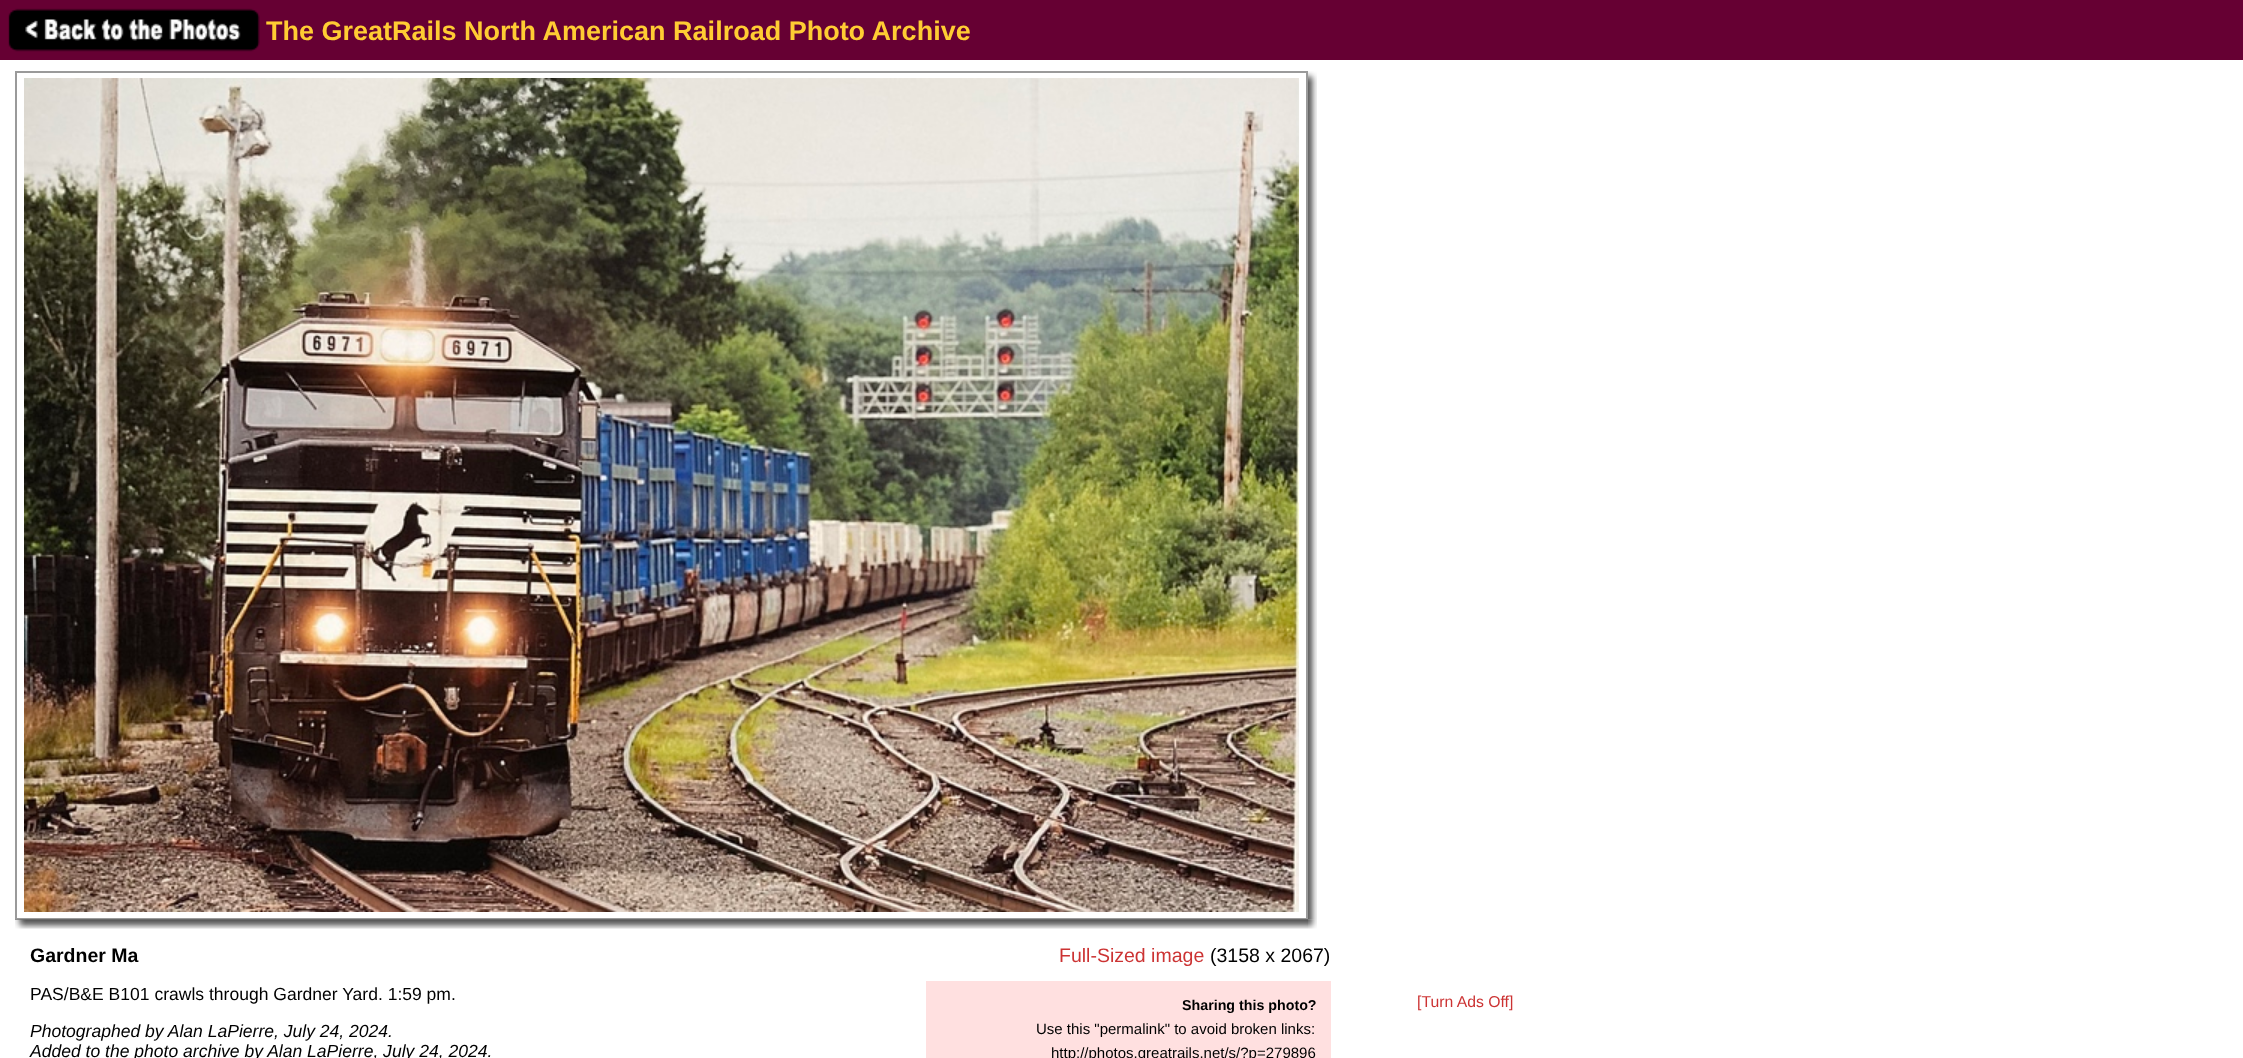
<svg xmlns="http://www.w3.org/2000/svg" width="2243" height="1058">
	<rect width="100%" height="100%" fill="#FFFFFF" />
	<rect x="0" y="0" width="2243" height="60" fill="#660033" />
	<image x="8" y="8" width="252" height="44" href="assets/img1.png" />
	<text x="266" y="40" font-family="Liberation Sans" font-size="27" font-weight="700" fill="#FFCC33">The GreatRails North American Railroad Photo Archive</text>
	<rect x="16" y="72" width="1291" height="847" fill="none" stroke="#9A9A9A" stroke-width="2" />
	<image x="24" y="78" width="1275" height="834" href="assets/img2.png" />
	<image x="1308" y="71" width="9" height="849" href="assets/img3.png" />
	<image x="15" y="919" width="1293" height="10" href="assets/img4.png" />
	<image x="1308" y="919" width="9" height="10" href="assets/img5.png" />
	<text x="30" y="962" font-family="Liberation Sans" font-size="19.5" font-weight="700" fill="#000000">Gardner Ma</text>
	<text x="30" y="1000" font-family="Liberation Sans" font-size="17.55" fill="#000000">PAS/B&amp;E B101 crawls through Gardner Yard. 1:59 pm.</text>
	<g font-family="Liberation Sans" font-size="17.55" font-style="italic" fill="#000000">
		<text x="30" y="1037">Photographed by Alan LaPierre, July 24, 2024.</text>
		<text x="30" y="1057">Added to the photo archive by Alan LaPierre, July 24, 2024.</text>
	</g>
	<text x="1059" y="962" font-family="Liberation Sans" font-size="19.5" fill="#CC3333">Full-Sized image</text>
	<text x="1210" y="962" font-family="Liberation Sans" font-size="19.5" fill="#000000">(3158 x 2067)</text>
	<rect x="926" y="981" width="405" height="77" fill="#FFE0E0" />
	<text x="1182" y="1010" font-family="Liberation Sans" font-size="14.25" font-weight="700" fill="#000000">Sharing this photo?</text>
	<g font-family="Liberation Sans" font-size="15" fill="#000000">
		<text x="1036" y="1034">Use this "permalink" to avoid broken links:</text>
		<text x="1051" y="1058">http://photos.greatrails.net/s/?p=279896</text>
	</g>
	<text x="1417" y="1007" font-family="Liberation Sans" font-size="15.75" fill="#CC3333">[Turn Ads Off]</text>
</svg>
